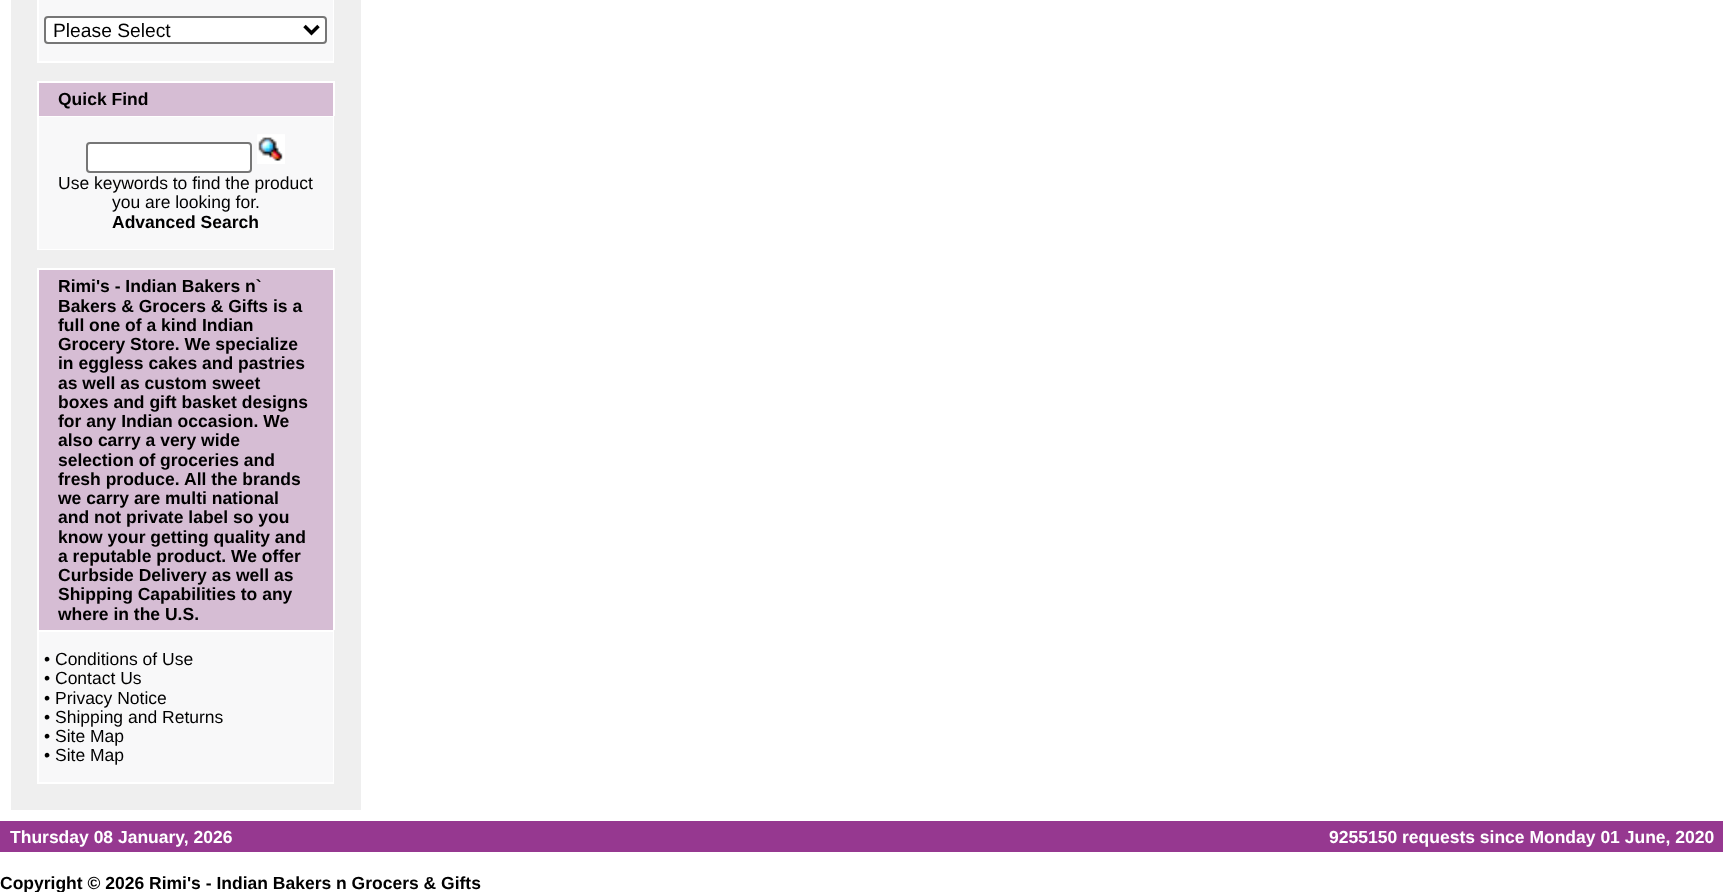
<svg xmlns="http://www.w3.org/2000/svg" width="1723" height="892">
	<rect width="100%" height="100%" fill="#FFFFFF" />
	<rect x="11" y="0" width="350" height="810" fill="#EFEFEF" />
	<rect x="37" y="0" width="297" height="63" fill="#FFFFFF" />
	<rect x="39" y="0" width="294" height="61" fill="#F8F8F9" />
	<rect x="45" y="17" width="281" height="26" rx="3" fill="#FFFFFF" stroke="#767676" stroke-width="2" />
	<path d="M304.5 26L311.5 33L318.5 26" fill="none" stroke="#000000" stroke-width="3.5" />
	<text x="53" y="37" font-family="Liberation Sans" font-size="19.25" fill="#000000">Please Select</text>
	<rect x="39" y="83" width="294" height="33" fill="#D6BDD4" />
	<rect x="37" y="81" width="297" height="2" fill="#FFFFFF" />
	<rect x="37" y="81" width="2" height="35" fill="#FFFFFF" />
	<text x="58" y="105" font-family="Liberation Sans" font-size="17.5" font-weight="700" fill="#000000">Quick Find</text>
	<rect x="333" y="81" width="2" height="35" fill="#FFFFFF" />
	<rect x="37" y="116" width="297" height="134" fill="#FFFFFF" />
	<rect x="39" y="117" width="294" height="132" fill="#F8F8F9" />
	<rect x="87" y="143" width="164" height="29" rx="3" fill="#FFFFFF" stroke="#767676" stroke-width="2" />
	<image x="257" y="134" width="28" height="30" href="assets/img1.png" />
	<g font-family="Liberation Sans" font-size="17.5" fill="#000000">
		<text x="58" y="189">Use keywords to find the product</text>
		<text x="112" y="208">you are looking for.</text>
	</g>
	<text x="112" y="228" font-family="Liberation Sans" font-size="17.5" font-weight="700" fill="#000000">Advanced Search</text>
	<rect x="39" y="270" width="294" height="360" fill="#D6BDD4" />
	<rect x="37" y="268" width="297" height="2" fill="#FFFFFF" />
	<rect x="37" y="268" width="2" height="362" fill="#FFFFFF" />
	<g font-family="Liberation Sans" font-size="17.5" font-weight="700" fill="#000000">
		<text x="58" y="292">Rimi's - Indian Bakers n`</text>
		<text x="58" y="312">Bakers &amp; Grocers &amp; Gifts is a</text>
		<text x="58" y="331">full one of a kind Indian</text>
		<text x="58" y="350">Grocery Store. We specialize</text>
		<text x="58" y="369">in eggless cakes and pastries</text>
		<text x="58" y="389">as well as custom sweet</text>
		<text x="58" y="408">boxes and gift basket designs</text>
		<text x="58" y="427">for any Indian occasion. We</text>
		<text x="58" y="446">also carry a very wide</text>
		<text x="58" y="466">selection of groceries and</text>
		<text x="58" y="485">fresh produce.</text>
		<text x="184" y="485">All the brands</text>
		<text x="58" y="504">we carry are multi national</text>
		<text x="58" y="523">and not private label so you</text>
		<text x="58" y="543">know your getting quality and</text>
		<text x="58" y="562">a reputable product. We offer</text>
		<text x="58" y="581">Curbside Delivery as well as</text>
		<text x="58" y="600">Shipping Capabilities to any</text>
		<text x="58" y="620">where in the U.S.</text>
	</g>
	<rect x="333" y="268" width="2" height="362" fill="#FFFFFF" />
	<rect x="37" y="630" width="297" height="154" fill="#FFFFFF" />
	<rect x="39" y="632" width="294" height="150" fill="#F8F8F9" />
	<g font-family="Liberation Sans" font-size="17.5" fill="#000000">
		<text x="44" y="665">• Conditions of Use</text>
		<text x="44" y="684">• Contact Us</text>
		<text x="44" y="704">• Privacy Notice</text>
		<text x="44" y="723">• Shipping and Returns</text>
		<text x="44" y="742">• Site Map</text>
		<text x="44" y="761">• Site Map</text>
	</g>
	<rect x="0" y="821" width="1723" height="31" fill="#963890" />
	<g font-family="Liberation Sans" font-size="17.5" font-weight="700" fill="#FFFFFF">
		<text x="10" y="843">Thursday 08 January, 2026</text>
		<text x="1329" y="843">9255150 requests since Monday 01 June, 2020</text>
	</g>
	<text x="0" y="889" font-family="Liberation Sans" font-size="17.5" font-weight="700" fill="#000000">Copyright © 2026 Rimi's - Indian Bakers n Grocers &amp; Gifts</text>
</svg>
